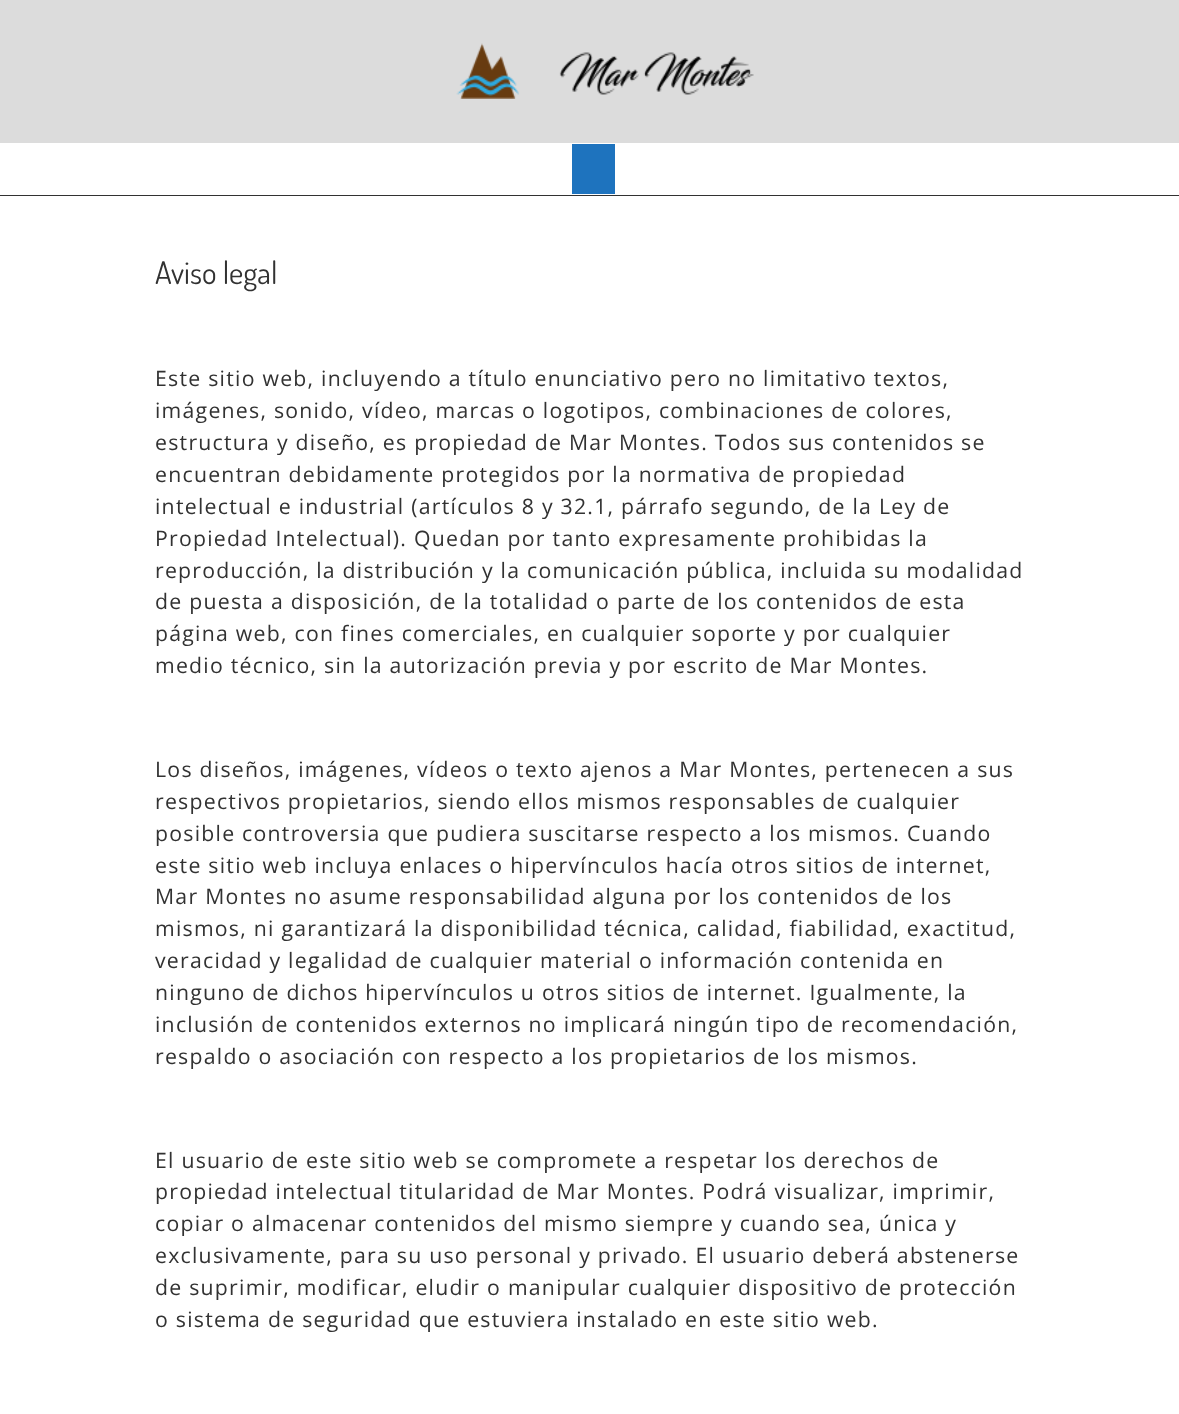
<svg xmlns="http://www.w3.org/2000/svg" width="1179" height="1414">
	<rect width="100%" height="100%" fill="#FFFFFF" />
	<rect x="0" y="0" width="1179" height="143" fill="#DCDCDC" />
	<image x="456" y="43" width="298" height="56" href="assets/img1.png" />
	<rect x="0" y="195" width="1179" height="1" fill="#323232" />
	<rect x="572" y="144" width="43" height="50" fill="#1E73BE" />
	<text x="155" y="284" font-family="Dosis" font-size="31" fill="#323232">Aviso legal</text>
	<g font-family="Open Sans" font-size="21.25" letter-spacing="1.25" fill="#323232">
		<text x="155" y="386">Este sitio web, incluyendo a título enunciativo pero no limitativo textos,</text>
		<text x="155" y="418">imágenes, sonido, vídeo, marcas o logotipos, combinaciones de colores,</text>
		<text x="155" y="450">estructura y diseño, es propiedad de Mar Montes. Todos sus contenidos se</text>
		<text x="155" y="482">encuentran debidamente protegidos por la normativa de propiedad</text>
		<text x="155" y="514">intelectual e industrial (artículos 8 y 32.1, párrafo segundo, de la Ley de</text>
		<text x="155" y="546">Propiedad Intelectual). Quedan por tanto expresamente prohibidas la</text>
		<text x="155" y="578">reproducción, la distribución y la comunicación pública, incluida su modalidad</text>
		<text x="155" y="609">de puesta a disposición, de la totalidad o parte de los contenidos de esta</text>
		<text x="155" y="641">página web, con fines comerciales, en cualquier soporte y por cualquier</text>
		<text x="155" y="673">medio técnico, sin la autorización previa y por escrito de Mar Montes.</text>
		<text x="155" y="777">Los diseños, imágenes, vídeos o texto ajenos a Mar Montes, pertenecen a sus</text>
		<text x="155" y="809">respectivos propietarios, siendo ellos mismos responsables de cualquier</text>
		<text x="155" y="841">posible controversia que pudiera suscitarse respecto a los mismos. Cuando</text>
		<text x="155" y="873">este sitio web incluya enlaces o hipervínculos hacía otros sitios de internet,</text>
		<text x="155" y="904">Mar Montes no asume responsabilidad alguna por los contenidos de los</text>
		<text x="155" y="936">mismos, ni garantizará la disponibilidad técnica, calidad, fiabilidad, exactitud,</text>
		<text x="155" y="968">veracidad y legalidad de cualquier material o información contenida en</text>
		<text x="155" y="1000">ninguno de dichos hipervínculos u otros sitios de internet. Igualmente, la</text>
		<text x="155" y="1032">inclusión de contenidos externos no implicará ningún tipo de recomendación,</text>
		<text x="155" y="1064">respaldo o asociación con respecto a los propietarios de los mismos.</text>
		<text x="155" y="1168">El usuario de este sitio web se compromete a respetar los derechos de</text>
		<text x="155" y="1199">propiedad intelectual titularidad de Mar Montes. Podrá visualizar, imprimir,</text>
		<text x="155" y="1231">copiar o almacenar contenidos del mismo siempre y cuando sea, única y</text>
		<text x="155" y="1263">exclusivamente, para su uso personal y privado. El usuario deberá abstenerse</text>
		<text x="155" y="1295">de suprimir, modificar, eludir o manipular cualquier dispositivo de protección</text>
		<text x="155" y="1327">o sistema de seguridad que estuviera instalado en este sitio web.</text>
	</g>
</svg>
